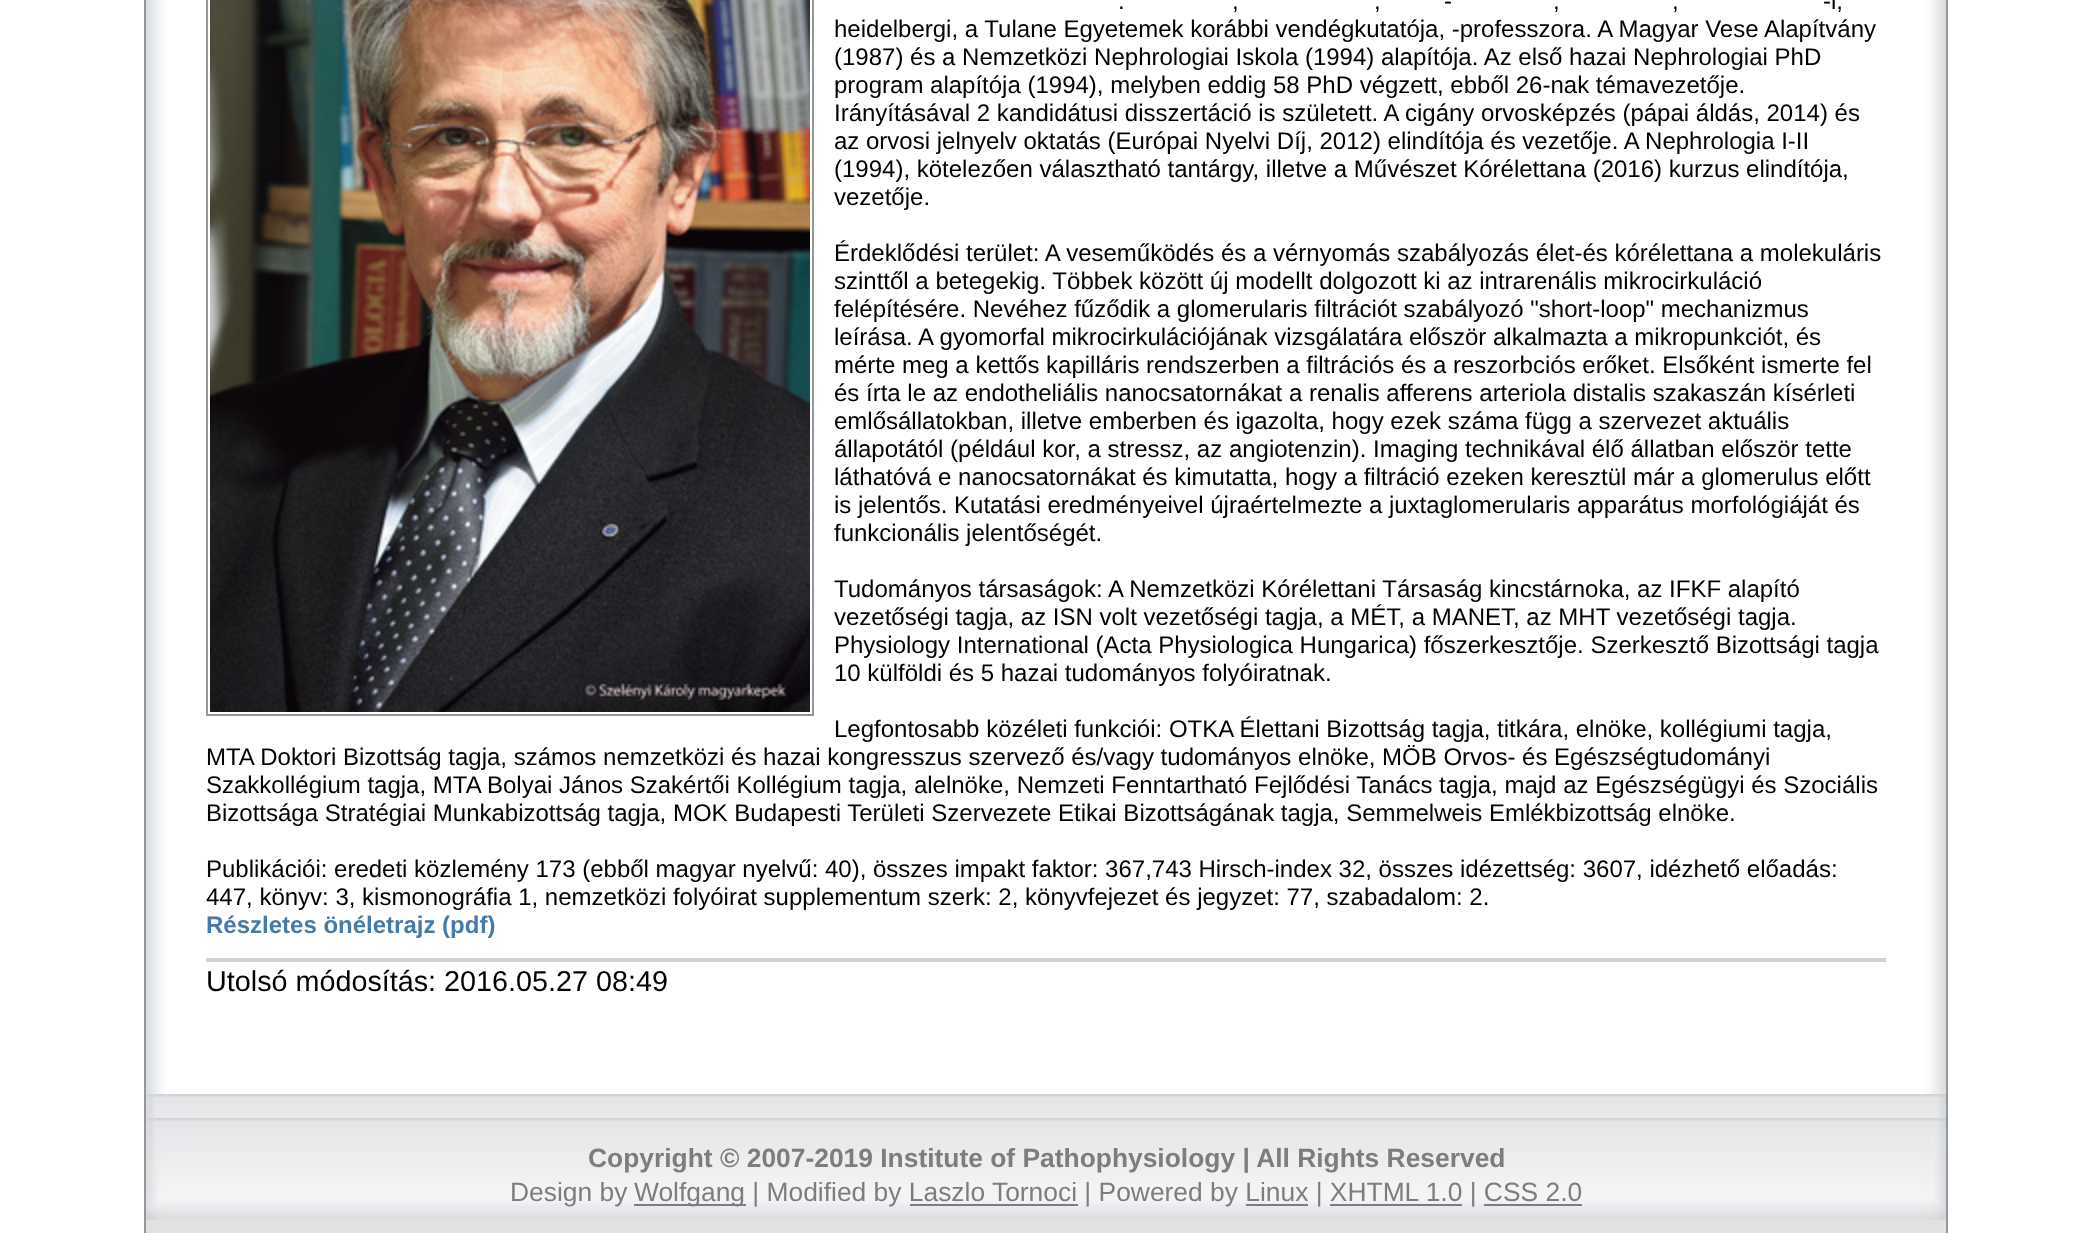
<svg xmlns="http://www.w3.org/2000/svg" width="2091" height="1233">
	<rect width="100%" height="100%" fill="#FFFFFF" />
	<rect x="145" y="-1" width="1802" height="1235" fill="none" stroke="#969696" stroke-width="2" />
	<image x="146" y="0" width="1800" height="1094" href="assets/img1.png" />
	<rect x="207" y="-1" width="606" height="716" fill="none" stroke="#969696" stroke-width="2" />
	<image x="210" y="0" width="600" height="712" href="assets/img2.png" />
	<g font-family="Liberation Sans" font-size="24" fill="#000000">
		<text x="1444" y="9">-</text>
		<text x="1823" y="9">-i,</text>
		<text x="1118" y="9">.</text>
		<text x="1232" y="9">,</text>
		<text x="1374" y="9">,</text>
		<text x="1553" y="9">,</text>
		<text x="1672" y="9">,</text>
		<text x="834" y="37">heidelbergi, a Tulane Egyetemek korábbi vendégkutatója, -professzora. A Magyar Vese Alapítvány</text>
		<text x="834" y="65">(1987) és a Nemzetközi Nephrologiai Iskola (1994) alapítója. Az első hazai Nephrologiai PhD</text>
		<text x="834" y="93">program alapítója (1994), melyben eddig 58 PhD végzett, ebből 26-nak témavezetője.</text>
		<text x="834" y="121">Irányításával 2 kandidátusi disszertáció is született. A cigány orvosképzés (pápai áldás, 2014) és</text>
		<text x="834" y="149">az orvosi jelnyelv oktatás (Európai Nyelvi Díj, 2012) elindítója és vezetője. A Nephrologia I-II</text>
		<text x="834" y="177">(1994), kötelezően választható tantárgy, illetve a Művészet Kórélettana (2016) kurzus elindítója,</text>
		<text x="834" y="205">vezetője.</text>
		<text x="834" y="261">Érdeklődési terület: A veseműködés és a vérnyomás szabályozás élet-és kórélettana a molekuláris</text>
		<text x="834" y="289">szinttől a betegekig. Többek között új modellt dolgozott ki az intrarenális mikrocirkuláció</text>
		<text x="834" y="317">felépítésére. Nevéhez fűződik a glomerularis filtrációt szabályozó "short-loop" mechanizmus</text>
		<text x="834" y="345">leírása. A gyomorfal mikrocirkulációjának vizsgálatára először alkalmazta a mikropunkciót, és</text>
		<text x="834" y="373">mérte meg a kettős kapilláris rendszerben a filtrációs és a reszorbciós erőket. Elsőként ismerte fel</text>
		<text x="834" y="401">és írta le az endotheliális nanocsatornákat a renalis afferens arteriola distalis szakaszán kísérleti</text>
		<text x="834" y="429">emlősállatokban, illetve emberben és igazolta, hogy ezek száma függ a szervezet aktuális</text>
		<text x="834" y="457">állapotától (például kor, a stressz, az angiotenzin). Imaging technikával élő állatban először tette</text>
		<text x="834" y="485">láthatóvá e nanocsatornákat és kimutatta, hogy a filtráció ezeken keresztül már a glomerulus előtt</text>
		<text x="834" y="513">is jelentős. Kutatási eredményeivel újraértelmezte a juxtaglomerularis apparátus morfológiáját és</text>
		<text x="834" y="541">funkcionális jelentőségét.</text>
		<text x="834" y="597">Tudományos társaságok: A Nemzetközi Kórélettani Társaság kincstárnoka, az IFKF alapító</text>
		<text x="834" y="625">vezetőségi tagja, az ISN volt vezetőségi tagja, a MÉT, a MANET, az MHT vezetőségi tagja.</text>
		<text x="834" y="653">Physiology International (Acta Physiologica Hungarica) főszerkesztője. Szerkesztő Bizottsági tagja</text>
		<text x="834" y="681">10 külföldi és 5 hazai tudományos folyóiratnak.</text>
		<text x="834" y="737">Legfontosabb közéleti funkciói: OTKA Élettani Bizottság tagja, titkára, elnöke, kollégiumi tagja,</text>
		<text x="206" y="765">MTA Doktori Bizottság tagja, számos nemzetközi és hazai kongresszus szervező és/vagy tudományos elnöke, MÖB Orvos- és Egészségtudományi</text>
		<text x="206" y="793">Szakkollégium tagja, MTA Bolyai János Szakértői Kollégium tagja, alelnöke, Nemzeti Fenntartható Fejlődési Tanács tagja, majd az Egészségügyi és Szociális</text>
		<text x="206" y="821">Bizottsága Stratégiai Munkabizottság tagja, MOK Budapesti Területi Szervezete Etikai Bizottságának tagja, Semmelweis Emlékbizottság elnöke.</text>
		<text x="206" y="877">Publikációi: eredeti közlemény 173 (ebből magyar nyelvű: 40), összes impakt faktor: 367,743 Hirsch-index 32, összes idézettség: 3607, idézhető előadás:</text>
		<text x="206" y="905">447, könyv: 3, kismonográfia 1, nemzetközi folyóirat supplementum szerk: 2, könyvfejezet és jegyzet: 77, szabadalom: 2.</text>
	</g>
	<text x="206" y="933" font-family="Liberation Sans" font-size="24" font-weight="700" fill="#467AA7">Részletes önéletrajz (pdf)</text>
	<rect x="206" y="958" width="1680" height="4" fill="#D2D2D2" />
	<text x="206" y="991" font-family="Liberation Sans" font-size="28.75" fill="#000000">Utolsó módosítás: 2016.05.27 08:49</text>
	<image x="146" y="1094" width="1800" height="24" href="assets/img3.png" />
	<rect x="146" y="1220" width="1800" height="13" fill="#E1E1E1" />
	<image x="146" y="1118" width="1800" height="102" href="assets/img4.png" />
	<text x="588" y="1167" font-family="Liberation Sans" font-size="26.4" font-weight="700" fill="#7D7D7D">Copyright © 2007-2019 Institute of Pathophysiology | All Rights Reserved</text>
	<text x="510" y="1201" font-family="Liberation Sans" font-size="26.4" fill="#7D7D7D">Design by</text>
	<rect x="634" y="1204" width="112" height="2" fill="#7D7D7D" />
	<text x="634" y="1201" font-family="Liberation Sans" font-size="26.4" fill="#7D7D7D">Wolfgang | Modified by Laszlo Tornoci | Powered by Linux | XHTML 1.0 | CSS 2.0</text>
	<rect x="910" y="1204" width="168" height="2" fill="#7D7D7D" />
	<rect x="1246" y="1204" width="62" height="2" fill="#7D7D7D" />
	<rect x="1330" y="1204" width="132" height="2" fill="#7D7D7D" />
	<rect x="1484" y="1204" width="98" height="2" fill="#7D7D7D" />
</svg>
